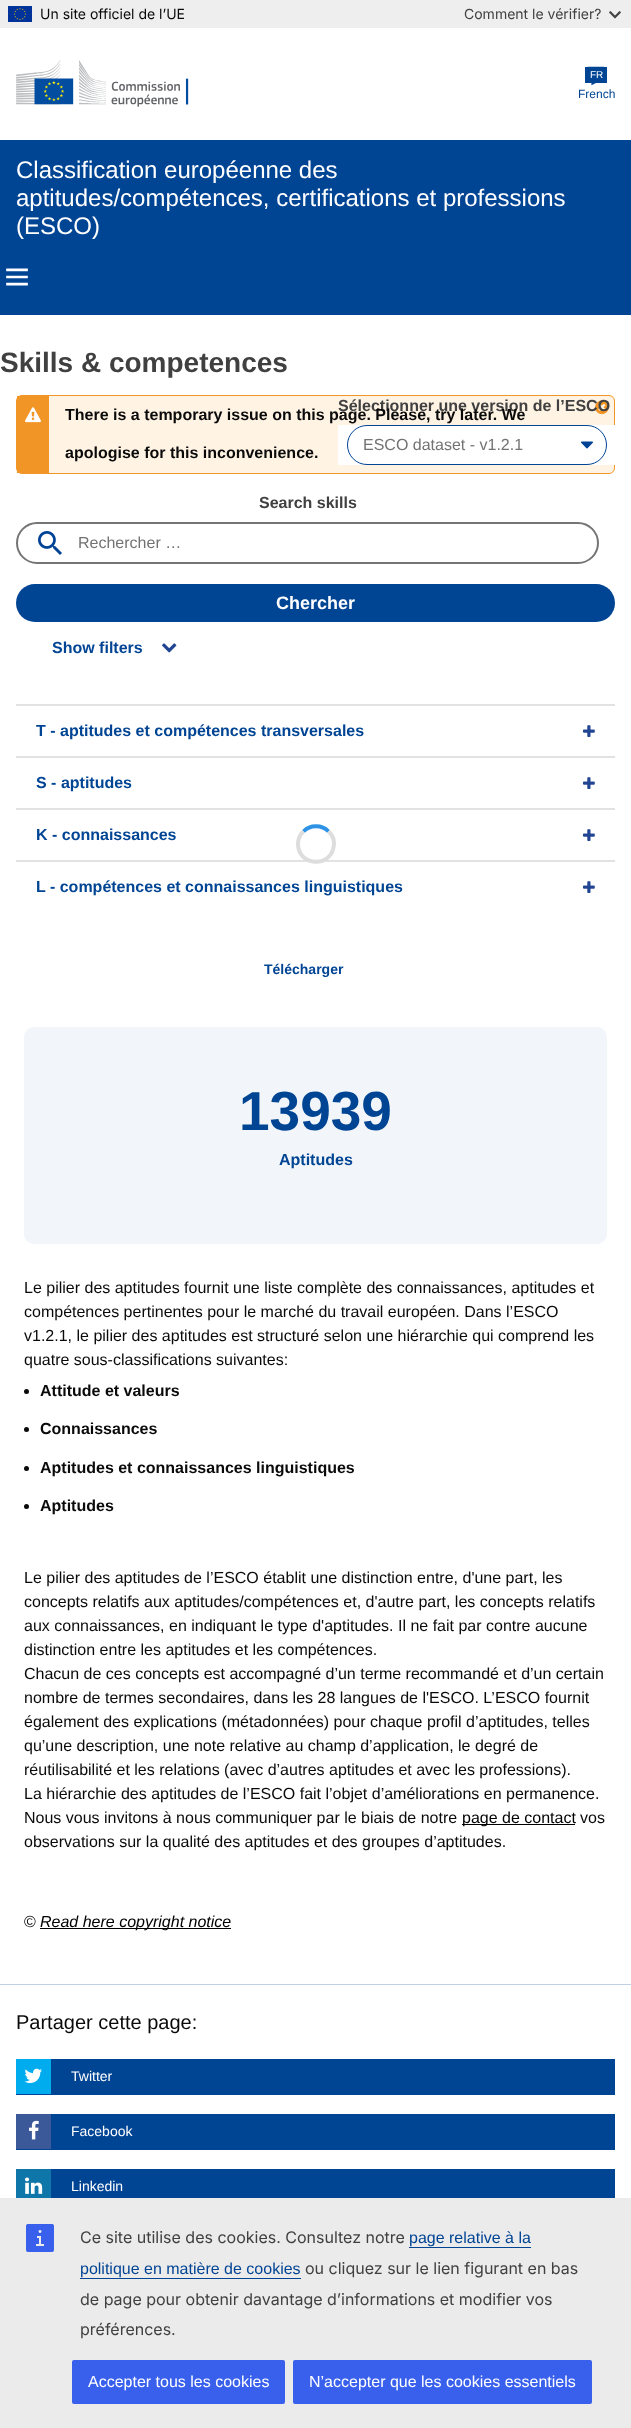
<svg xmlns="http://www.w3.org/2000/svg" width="631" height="2428">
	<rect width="100%" height="100%" fill="#FFFFFF" />
	<rect x="0" y="0" width="631" height="28" fill="#EEEEEE" />
	<image x="8" y="6" width="24" height="16" href="assets/img1.png" />
	<text x="40" y="19" font-family="Inter" font-size="14" fill="#0A0A0A">Un site officiel de l’UE</text>
	<text x="464" y="19" font-family="Inter" font-size="14" fill="#404040">Comment le vérifier?</text>
	<image x="609" y="11" width="12" height="8" href="assets/img2.png" />
	<image x="16" y="60" width="173" height="47" href="assets/img3.png" />
	<image x="587" y="66" width="18" height="20" href="assets/img4.png" />
	<rect x="585" y="67" width="22" height="16" fill="#004494" />
	<text x="590" y="78" font-family="Liberation Sans" font-size="10" fill="#FFFFFF">FR</text>
	<text x="578" y="98" font-family="Liberation Sans" font-size="12" fill="#004494">French</text>
	<rect x="0" y="140" width="631" height="175" fill="#004494" />
	<g font-family="Liberation Sans" font-size="24" fill="#FFFFFF">
		<text x="16" y="178">Classification européenne des</text>
		<text x="16" y="206">aptitudes/compétences, certifications et professions</text>
		<text x="16" y="234">(ESCO)</text>
	</g>
	<image x="6" y="268" width="22" height="18" href="assets/img5.png" />
	<text x="0" y="372" font-family="Liberation Sans" font-size="28" font-weight="700" fill="#404040">Skills &amp; competences</text>
	<rect x="16.5" y="395.5" width="598" height="78" rx="5.5" fill="#FFF3E4" stroke="#F29527" />
	<image x="595" y="400" width="14" height="15" href="assets/img11.png" />
	<text x="338" y="411" font-family="Liberation Sans" font-size="16" font-weight="700" fill="#404040">Sélectionner une version de l’ESCO</text>
	<rect x="338" y="425" width="277" height="40" fill="#FFFFFF" />
	<image x="581" y="441" width="12" height="8" href="assets/img6.png" />
	<rect x="347.5" y="425.5" width="259" height="39" rx="19.5" fill="none" stroke="#004494" />
	<text x="363" y="450" font-family="Liberation Sans" font-size="16" fill="#737373">ESCO dataset - v1.2.1</text>
	<text x="259" y="508" font-family="Liberation Sans" font-size="16" font-weight="700" fill="#404040">Search skills</text>
	<image x="38" y="531" width="24" height="24" href="assets/img7.png" />
	<rect x="17" y="523" width="581" height="40" rx="20" fill="none" stroke="#757575" stroke-width="2" />
	<text x="78" y="548" font-family="Liberation Sans" font-size="16" fill="#737373">Rechercher …</text>
	<rect x="16" y="584" width="599" height="38" rx="19" fill="#004494" />
	<text x="276" y="609" font-family="Liberation Sans" font-size="18" font-weight="700" fill="#FFFFFF">Chercher</text>
	<text x="52" y="653" font-family="Liberation Sans" font-size="16" font-weight="700" fill="#004494">Show filters</text>
	<image x="162" y="643" width="15" height="10" href="assets/img8.png" />
	<rect x="16" y="704" width="599" height="2" fill="#E2E2E2" />
	<text x="36" y="736" font-family="Liberation Sans" font-size="16" font-weight="700" fill="#004494">T - aptitudes et compétences transversales</text>
	<image x="583" y="725" width="12" height="12" href="assets/img9.png" />
	<rect x="16" y="756" width="599" height="2" fill="#E2E2E2" />
	<text x="36" y="788" font-family="Liberation Sans" font-size="16" font-weight="700" fill="#004494">S - aptitudes</text>
	<image x="583" y="777" width="12" height="12" href="assets/img9.png" />
	<rect x="16" y="808" width="599" height="2" fill="#E2E2E2" />
	<text x="36" y="840" font-family="Liberation Sans" font-size="16" font-weight="700" fill="#004494">K - connaissances</text>
	<image x="583" y="829" width="12" height="12" href="assets/img9.png" />
	<rect x="16" y="860" width="599" height="2" fill="#E2E2E2" />
	<text x="36" y="892" font-family="Liberation Sans" font-size="16" font-weight="700" fill="#004494">L - compétences et connaissances linguistiques</text>
	<image x="583" y="881" width="12" height="12" href="assets/img9.png" />
	<path d="M303.5 831.5C310 824.5 322 824.5 328.5 831.5" fill="none" stroke="#2E93E6" stroke-width="4" />
	<path d="M328.5 831.5C333 835.5 335 841.5 333.5 847.5C329.5 868.5 298 865.5 298 844C298 839.5 300 834.5 303.5 831.5" fill="none" stroke="#DDDDDD" stroke-width="4" />
	<text x="264" y="974" font-family="Liberation Sans" font-size="14" font-weight="700" fill="#004494">Télécharger</text>
	<rect x="24" y="1027" width="583" height="217" rx="10" fill="#F2F5F9" />
	<text x="239" y="1130" font-family="Liberation Sans" font-size="55" font-weight="700" fill="#004494">13939</text>
	<text x="279" y="1165" font-family="Liberation Sans" font-size="16" font-weight="700" fill="#004494">Aptitudes</text>
	<g font-family="Liberation Sans" font-size="16" fill="#0A0A0A">
		<text x="24" y="1293">Le pilier des aptitudes fournit une liste complète des connaissances, aptitudes et</text>
		<text x="24" y="1317">compétences pertinentes pour le marché du travail européen. Dans l’ESCO</text>
		<text x="24" y="1341">v1.2.1, le pilier des aptitudes est structuré selon une hiérarchie qui comprend les</text>
		<text x="24" y="1365">quatre sous-classifications suivantes:</text>
	</g>
	<circle cx="26.5" cy="1391.5" r="2.5" fill="#0A0A0A" />
	<text x="40" y="1396" font-family="Liberation Sans" font-size="16" font-weight="700" fill="#0A0A0A">Attitude et valeurs</text>
	<circle cx="26.5" cy="1429.5" r="2.5" fill="#0A0A0A" />
	<text x="40" y="1434" font-family="Liberation Sans" font-size="16" font-weight="700" fill="#0A0A0A">Connaissances</text>
	<circle cx="26.5" cy="1468.5" r="2.5" fill="#0A0A0A" />
	<text x="40" y="1473" font-family="Liberation Sans" font-size="16" font-weight="700" fill="#0A0A0A">Aptitudes et connaissances linguistiques</text>
	<circle cx="26.5" cy="1506.5" r="2.5" fill="#0A0A0A" />
	<text x="40" y="1511" font-family="Liberation Sans" font-size="16" font-weight="700" fill="#0A0A0A">Aptitudes</text>
	<g font-family="Liberation Sans" font-size="16" fill="#0A0A0A">
		<text x="24" y="1583">Le pilier des aptitudes de l’ESCO établit une distinction entre, d'une part, les</text>
		<text x="24" y="1607">concepts relatifs aux aptitudes/compétences et, d'autre part, les concepts relatifs</text>
		<text x="24" y="1631">aux connaissances, en indiquant le type d'aptitudes. Il ne fait par contre aucune</text>
		<text x="24" y="1655">distinction entre les aptitudes et les compétences.</text>
		<text x="24" y="1679">Chacun de ces concepts est accompagné d’un terme recommandé et d’un certain</text>
		<text x="24" y="1703">nombre de termes secondaires, dans les 28 langues de l'ESCO. L’ESCO fournit</text>
		<text x="24" y="1727">également des explications (métadonnées) pour chaque profil d’aptitudes, telles</text>
		<text x="24" y="1751">qu’une description, une note relative au champ d’application, le degré de</text>
		<text x="24" y="1775">réutilisabilité et les relations (avec d’autres aptitudes et avec les professions).</text>
		<text x="24" y="1799">La hiérarchie des aptitudes de l’ESCO fait l’objet d’améliorations en permanence.</text>
		<text x="24" y="1823">Nous vous invitons à nous communiquer par le biais de notre</text>
	</g>
	<rect x="462" y="1824" width="113" height="1" fill="#000000" />
	<text x="462" y="1823" font-family="Liberation Sans" font-size="16" fill="#000000">page de contact</text>
	<g font-family="Liberation Sans" font-size="16" fill="#0A0A0A">
		<text x="580" y="1823">vos</text>
		<text x="24" y="1847">observations sur la qualité des aptitudes et des groupes d’aptitudes.</text>
		<text x="24" y="1927">©</text>
	</g>
	<rect x="40" y="1928" width="191" height="1" fill="#000000" />
	<text x="40" y="1927" font-family="Liberation Sans" font-size="16" font-style="italic" fill="#000000">Read here copyright notice</text>
	<rect x="17" y="396" width="32" height="77" fill="#F29527" />
	<image x="25" y="407" width="16" height="16" href="assets/img10.png" />
	<g font-family="Liberation Sans" font-size="16" font-weight="700" fill="#0A0A0A">
		<text x="65" y="420">There is a temporary issue on this page. Please, try later. We</text>
		<text x="65" y="458">apologise for this inconvenience.</text>
	</g>
	<rect x="0" y="1984" width="631" height="1" fill="#BFD0E4" />
	<text x="16" y="2029" font-family="Liberation Sans" font-size="20" fill="#0A0A0A">Partager cette page:</text>
	<rect x="16" y="2059" width="599" height="36" fill="#004494" />
	<rect x="16" y="2059" width="35" height="35" fill="#00ACEE" />
	<image x="24" y="2068" width="18" height="15" href="assets/img12.png" />
	<text x="71" y="2081" font-family="Liberation Sans" font-size="14" fill="#FFFFFF">Twitter</text>
	<rect x="16" y="2114" width="599" height="36" fill="#004494" />
	<rect x="16" y="2114" width="35" height="35" fill="#3B5998" />
	<image x="29" y="2120" width="10" height="20" href="assets/img13.png" />
	<text x="71" y="2136" font-family="Liberation Sans" font-size="14" fill="#FFFFFF">Facebook</text>
	<rect x="51" y="2169" width="564" height="29" fill="#004494" />
	<rect x="16" y="2169" width="35" height="29" fill="#0E76A8" />
	<image x="25" y="2177" width="18" height="17" href="assets/img14.png" />
	<text x="71" y="2191" font-family="Liberation Sans" font-size="14" fill="#FFFFFF">Linkedin</text>
	<rect x="0" y="2198" width="631" height="230" fill="#EBEBEB" />
	<image x="26" y="2224" width="28" height="28" href="assets/img15.png" />
	<text x="80" y="2243" font-family="Inter" font-size="16" fill="#404040">Ce site utilise des cookies. Consultez notre</text>
	<text x="409" y="2243" font-family="Liberation Sans" font-size="16" fill="#004494">page relative à la</text>
	<rect x="409" y="2247" width="122" height="1" fill="#004494" />
	<text x="80" y="2274" font-family="Liberation Sans" font-size="16" fill="#004494">politique en matière de cookies</text>
	<rect x="80" y="2278" width="221" height="1" fill="#004494" />
	<g font-family="Inter" font-size="16" fill="#404040">
		<text x="305" y="2274">ou cliquez sur le lien figurant en bas</text>
		<text x="80" y="2305">de page pour obtenir davantage d’informations et modifier vos</text>
		<text x="80" y="2335">préférences.</text>
	</g>
	<rect x="72" y="2360" width="213" height="44" rx="2" fill="#3860ED" />
	<text x="88" y="2387" font-family="Liberation Sans" font-size="16" fill="#FFFFFF">Accepter tous les cookies</text>
	<rect x="293" y="2360" width="299" height="44" rx="2" fill="#3860ED" />
	<text x="309" y="2387" font-family="Liberation Sans" font-size="16" fill="#FFFFFF">N’accepter que les cookies essentiels</text>
</svg>
